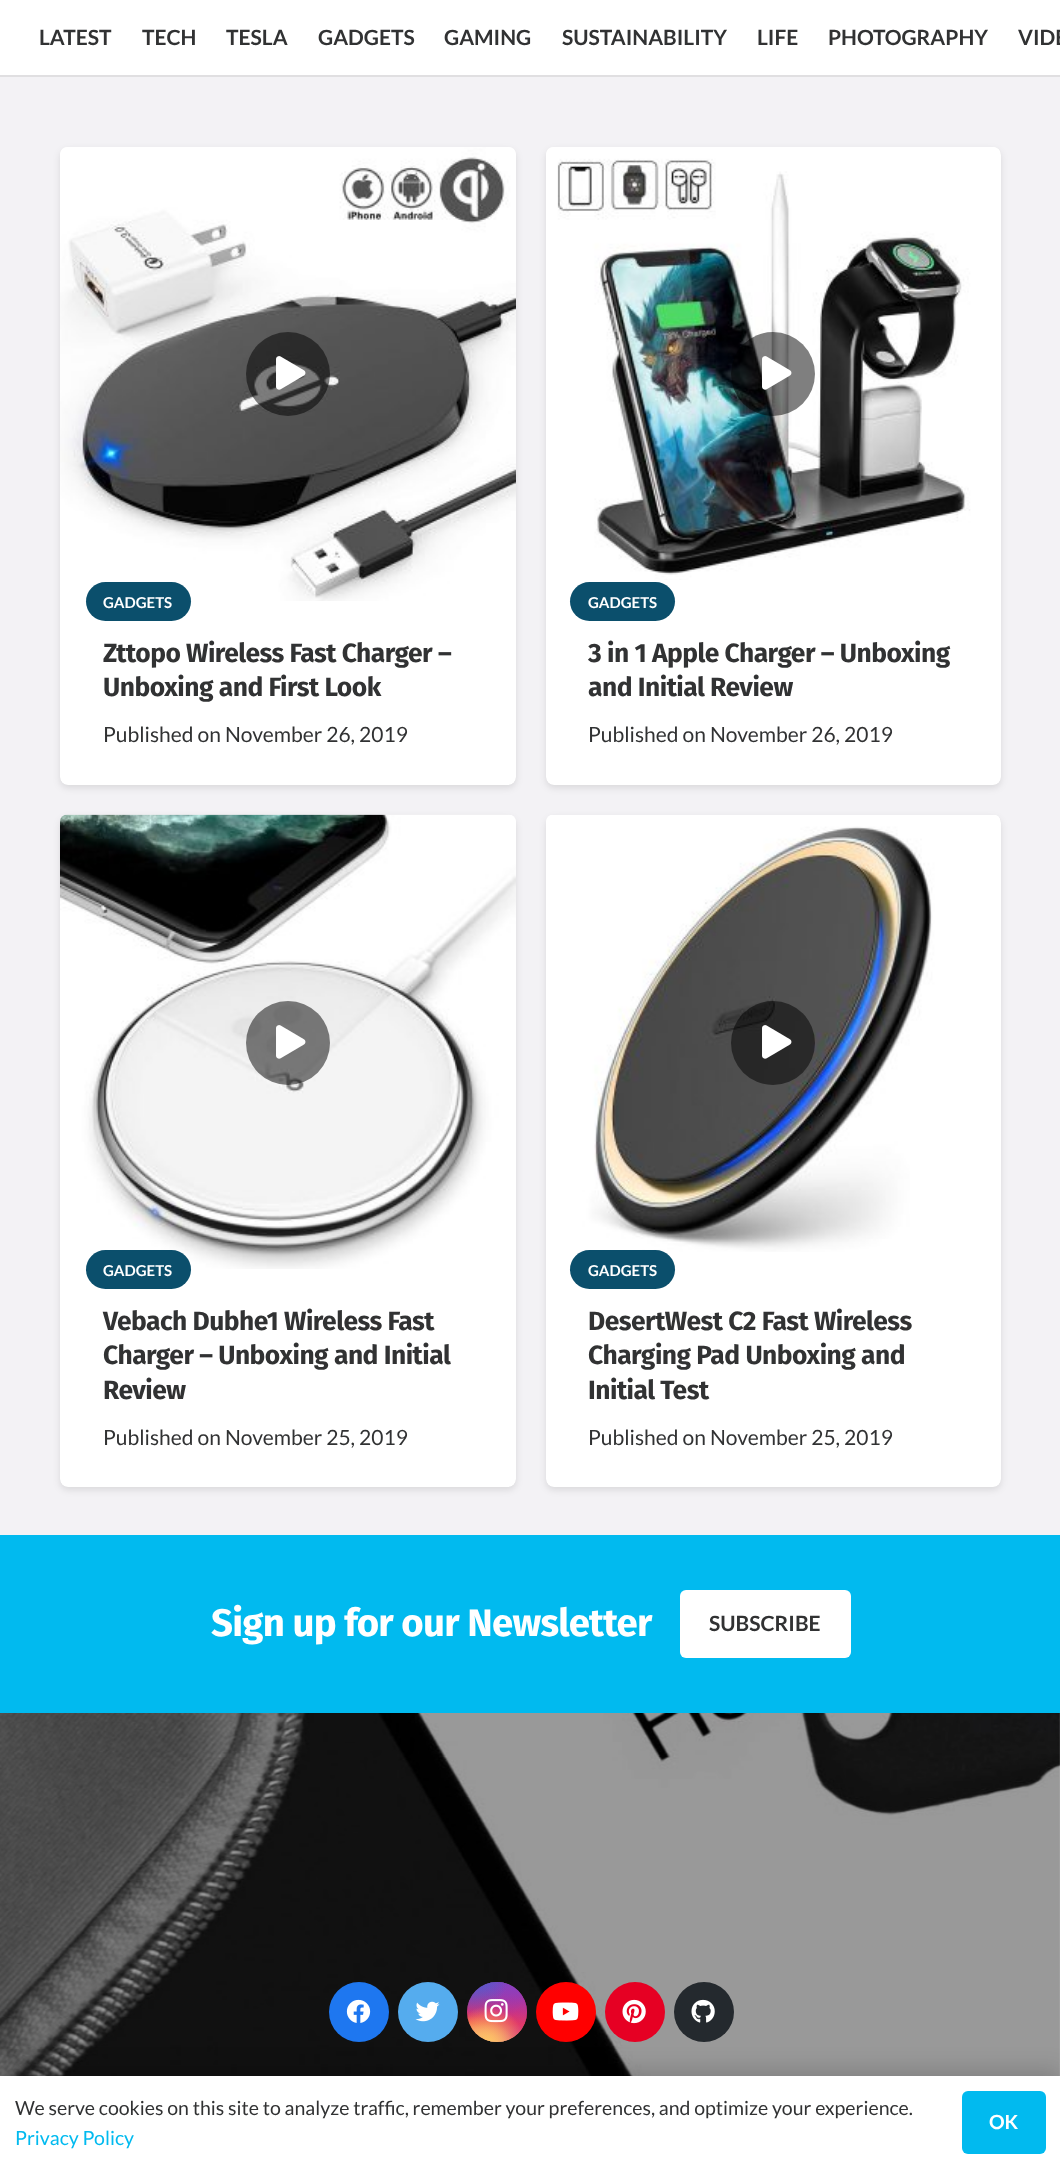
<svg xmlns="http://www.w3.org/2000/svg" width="1060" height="2169">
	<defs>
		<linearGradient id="g1" gradientUnits="userSpaceOnUse" x1="497" y1="1982" x2="497" y2="2042"><stop offset="0" stop-color="#6559CA" /><stop offset="0.3" stop-color="#BC318F" /><stop offset="0.5" stop-color="#E42E66" /><stop offset="0.7" stop-color="#FA5332" /><stop offset="1" stop-color="#FFDC80" /></linearGradient>
		<radialGradient id="g2" gradientUnits="userSpaceOnUse" cx="527" cy="2042" r="85"><stop offset="0" stop-color="#D9317A" /><stop offset="1" stop-color="#D9317A" stop-opacity="0" /></radialGradient>
		<radialGradient id="g3" gradientUnits="userSpaceOnUse" cx="0" cy="0" r="1" gradientTransform="matrix(51 0 0 102 503 1970)"><stop offset="0" stop-color="#893DC2" /><stop offset="0.5" stop-color="#893DC2" stop-opacity="0" /></radialGradient>
		<radialGradient id="g4" gradientUnits="userSpaceOnUse" cx="527" cy="1982" r="85"><stop offset="0" stop-color="#893DC2" /><stop offset="0.5" stop-color="#893DC2" stop-opacity="0" /></radialGradient>
		<radialGradient id="g5" gradientUnits="userSpaceOnUse" cx="0" cy="0" r="1" gradientTransform="matrix(68 0 0 127 479 1952)"><stop offset="0" stop-color="#5258CF" /><stop offset="0.5" stop-color="#5258CF" stop-opacity="0" /></radialGradient>
		<radialGradient id="g6" gradientUnits="userSpaceOnUse" cx="0" cy="0" r="1" gradientTransform="matrix(85 0 0 106 467 1967)"><stop offset="0" stop-color="#5258CF" /><stop offset="0.5" stop-color="#5258CF" stop-opacity="0" /></radialGradient>
		<radialGradient id="g7" gradientUnits="userSpaceOnUse" cx="473" cy="2066" r="100"><stop offset="0" stop-color="#FEDA7E" /><stop offset="0.5" stop-color="#FEDA7E" stop-opacity="0" /></radialGradient>
		<radialGradient id="g8" gradientUnits="userSpaceOnUse" cx="488" cy="2042" r="72"><stop offset="0" stop-color="#FEC564" /><stop offset="0.5" stop-color="#FEC564" stop-opacity="0" /></radialGradient>
	</defs>
	<rect width="100%" height="100%" fill="#FFFFFF" />
	<rect x="0" y="75" width="1060" height="1460" fill="#F3F2F5" />
	<path d="M0 75V77H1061V2H1060V75Z" fill="#000000" fill-opacity="0.08" />
	<g font-family="Lato" font-size="21" font-weight="700" fill="#313233">
		<text x="39" y="45">LATEST</text>
		<text x="142" y="45">TECH</text>
		<text x="226" y="45">TESLA</text>
		<text x="318" y="45">GADGETS</text>
		<text x="444" y="45">GAMING</text>
		<text x="562" y="45">SUSTAINABILITY</text>
		<text x="757" y="45">LIFE</text>
		<text x="828" y="45">PHOTOGRAPHY</text>
		<text x="1018" y="45">VIDE</text>
	</g>
	<rect x="60" y="150" width="456" height="638" rx="8" fill="#000000" fill-opacity="0.1" filter="blur(3.5px)" />
	<rect x="60" y="147" width="456" height="638" rx="8" fill="#000000" fill-opacity="0.1" filter="blur(0.5px)" />
	<rect x="60" y="147" width="456" height="638" rx="8" fill="#FFFFFF" />
	<image x="60" y="147" width="456" height="454" href="assets/img1.png" />
	<circle cx="288" cy="374" r="42" fill="#000000" fill-opacity="0.5" />
	<image x="276" y="356" width="30" height="34" href="assets/img2.png" />
	<rect x="86" y="582" width="105" height="39" rx="19.5" fill="#0B4F6C" />
	<text x="103" y="608" font-family="Lato" font-size="15" font-weight="700" fill="#FFFFFF">GADGETS</text>
	<g font-family="Fira Sans" font-size="26.4" font-weight="700" letter-spacing="-0.5" fill="#313233">
		<text x="103" y="662">Zttopo Wireless Fast Charger –</text>
		<text x="103" y="696">Unboxing and First Look</text>
	</g>
	<text x="103" y="742" font-family="Lato" font-size="21" fill="#313233">Published on November 26, 2019</text>
	<rect x="546" y="150" width="455" height="638" rx="8" fill="#000000" fill-opacity="0.1" filter="blur(3.5px)" />
	<rect x="546" y="147" width="455" height="638" rx="8" fill="#000000" fill-opacity="0.1" filter="blur(0.5px)" />
	<rect x="546" y="147" width="455" height="638" rx="8" fill="#FFFFFF" />
	<image x="546" y="147" width="454" height="433" href="assets/img3.png" />
	<circle cx="773" cy="374" r="42" fill="#000000" fill-opacity="0.5" />
	<image x="762" y="356" width="30" height="34" href="assets/img4.png" />
	<rect x="570" y="582" width="105" height="39" rx="19.5" fill="#0B4F6C" />
	<text x="588" y="608" font-family="Lato" font-size="15" font-weight="700" fill="#FFFFFF">GADGETS</text>
	<g font-family="Fira Sans" font-size="26.4" font-weight="700" letter-spacing="-0.5" fill="#313233">
		<text x="588" y="662">3 in 1 Apple Charger – Unboxing</text>
		<text x="588" y="696">and Initial Review</text>
	</g>
	<text x="588" y="742" font-family="Lato" font-size="21" fill="#313233">Published on November 26, 2019</text>
	<rect x="60" y="818" width="456" height="672" rx="8" fill="#000000" fill-opacity="0.1" filter="blur(3.5px)" />
	<rect x="60" y="815" width="456" height="672" rx="8" fill="#000000" fill-opacity="0.1" filter="blur(0.5px)" />
	<rect x="60" y="815" width="456" height="672" rx="8" fill="#FFFFFF" />
	<image x="60" y="814" width="456" height="455" href="assets/img5.png" />
	<circle cx="288" cy="1043" r="42" fill="#000000" fill-opacity="0.5" />
	<image x="276" y="1025" width="30" height="34" href="assets/img6.png" />
	<rect x="86" y="1250" width="105" height="39" rx="19.5" fill="#0B4F6C" />
	<text x="103" y="1276" font-family="Lato" font-size="15" font-weight="700" fill="#FFFFFF">GADGETS</text>
	<g font-family="Fira Sans" font-size="26.4" font-weight="700" letter-spacing="-0.5" fill="#313233">
		<text x="103" y="1330">Vebach Dubhe1 Wireless Fast</text>
		<text x="103" y="1364">Charger – Unboxing and Initial</text>
		<text x="103" y="1399">Review</text>
	</g>
	<text x="103" y="1445" font-family="Lato" font-size="21" fill="#313233">Published on November 25, 2019</text>
	<rect x="546" y="818" width="455" height="672" rx="8" fill="#000000" fill-opacity="0.1" filter="blur(3.5px)" />
	<rect x="546" y="815" width="455" height="672" rx="8" fill="#000000" fill-opacity="0.1" filter="blur(0.5px)" />
	<rect x="546" y="815" width="455" height="672" rx="8" fill="#FFFFFF" />
	<image x="546" y="815" width="454" height="437" href="assets/img7.png" />
	<circle cx="773" cy="1043" r="42" fill="#000000" fill-opacity="0.5" />
	<image x="762" y="1025" width="30" height="34" href="assets/img8.png" />
	<rect x="570" y="1250" width="105" height="39" rx="19.5" fill="#0B4F6C" />
	<text x="588" y="1276" font-family="Lato" font-size="15" font-weight="700" fill="#FFFFFF">GADGETS</text>
	<g font-family="Fira Sans" font-size="26.4" font-weight="700" letter-spacing="-0.5" fill="#313233">
		<text x="588" y="1330">DesertWest C2 Fast Wireless</text>
		<text x="588" y="1364">Charging Pad Unboxing and</text>
		<text x="588" y="1399">Initial Test</text>
	</g>
	<text x="588" y="1445" font-family="Lato" font-size="21" fill="#313233">Published on November 25, 2019</text>
	<rect x="0" y="1535" width="1060" height="178" fill="#01BAEF" />
	<text x="211" y="1636" font-family="Fira Sans" font-size="38.4" font-weight="700" letter-spacing="-0.75" fill="#FFFFFF">Sign up for our Newsletter</text>
	<rect x="680" y="1590" width="171" height="68" rx="6" fill="#FFFFFF" />
	<text x="709" y="1631" font-family="Lato" font-size="21" font-weight="700" fill="#313233">SUBSCRIBE</text>
	<image x="0" y="1713" width="1060" height="363" href="assets/img9.png" />
	<circle cx="359" cy="2012" r="30" fill="#1E77F0" />
	<image x="346" y="1999" width="25" height="24" href="assets/img10.png" />
	<circle cx="428" cy="2012" r="30" fill="#55ACEE" />
	<image x="415" y="2001" width="25" height="21" href="assets/img11.png" />
	<circle cx="497" cy="2012" r="30" fill="url(#g1)" />
	<circle cx="497" cy="2012" r="30" fill="url(#g2)" />
	<circle cx="497" cy="2012" r="30" fill="url(#g3)" />
	<circle cx="497" cy="2012" r="30" fill="url(#g4)" />
	<circle cx="497" cy="2012" r="30" fill="url(#g5)" />
	<circle cx="497" cy="2012" r="30" fill="url(#g6)" />
	<circle cx="497" cy="2012" r="30" fill="url(#g7)" />
	<circle cx="497" cy="2012" r="30" fill="url(#g8)" />
	<image x="484" y="1999" width="24" height="24" href="assets/img12.png" />
	<circle cx="566" cy="2012" r="30" fill="#FF0000" />
	<image x="552" y="2002" width="27" height="19" href="assets/img13.png" />
	<circle cx="635" cy="2012" r="30" fill="#E60023" />
	<image x="622" y="1999" width="24" height="25" href="assets/img14.png" />
	<circle cx="704" cy="2012" r="30" fill="#24292E" />
	<image x="691" y="1999" width="24" height="24" href="assets/img15.png" />
	<rect x="0" y="2069" width="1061" height="93" fill="#000000" fill-opacity="0.15" filter="blur(11px)" />
	<rect x="0" y="2076" width="1060" height="93" fill="#FFFFFF" />
	<text x="15" y="2115" font-family="Lato" font-size="19.5" fill="#313233">We serve cookies on this site to analyze traffic, remember your preferences, and optimize your experience.</text>
	<text x="15" y="2145" font-family="Lato" font-size="19.5" fill="#01BAEF">Privacy Policy</text>
	<rect x="962" y="2091" width="84" height="63" rx="6" fill="#01BAEF" />
	<text x="989" y="2129" font-family="Lato" font-size="19.5" font-weight="700" fill="#FFFFFF">OK</text>
</svg>
